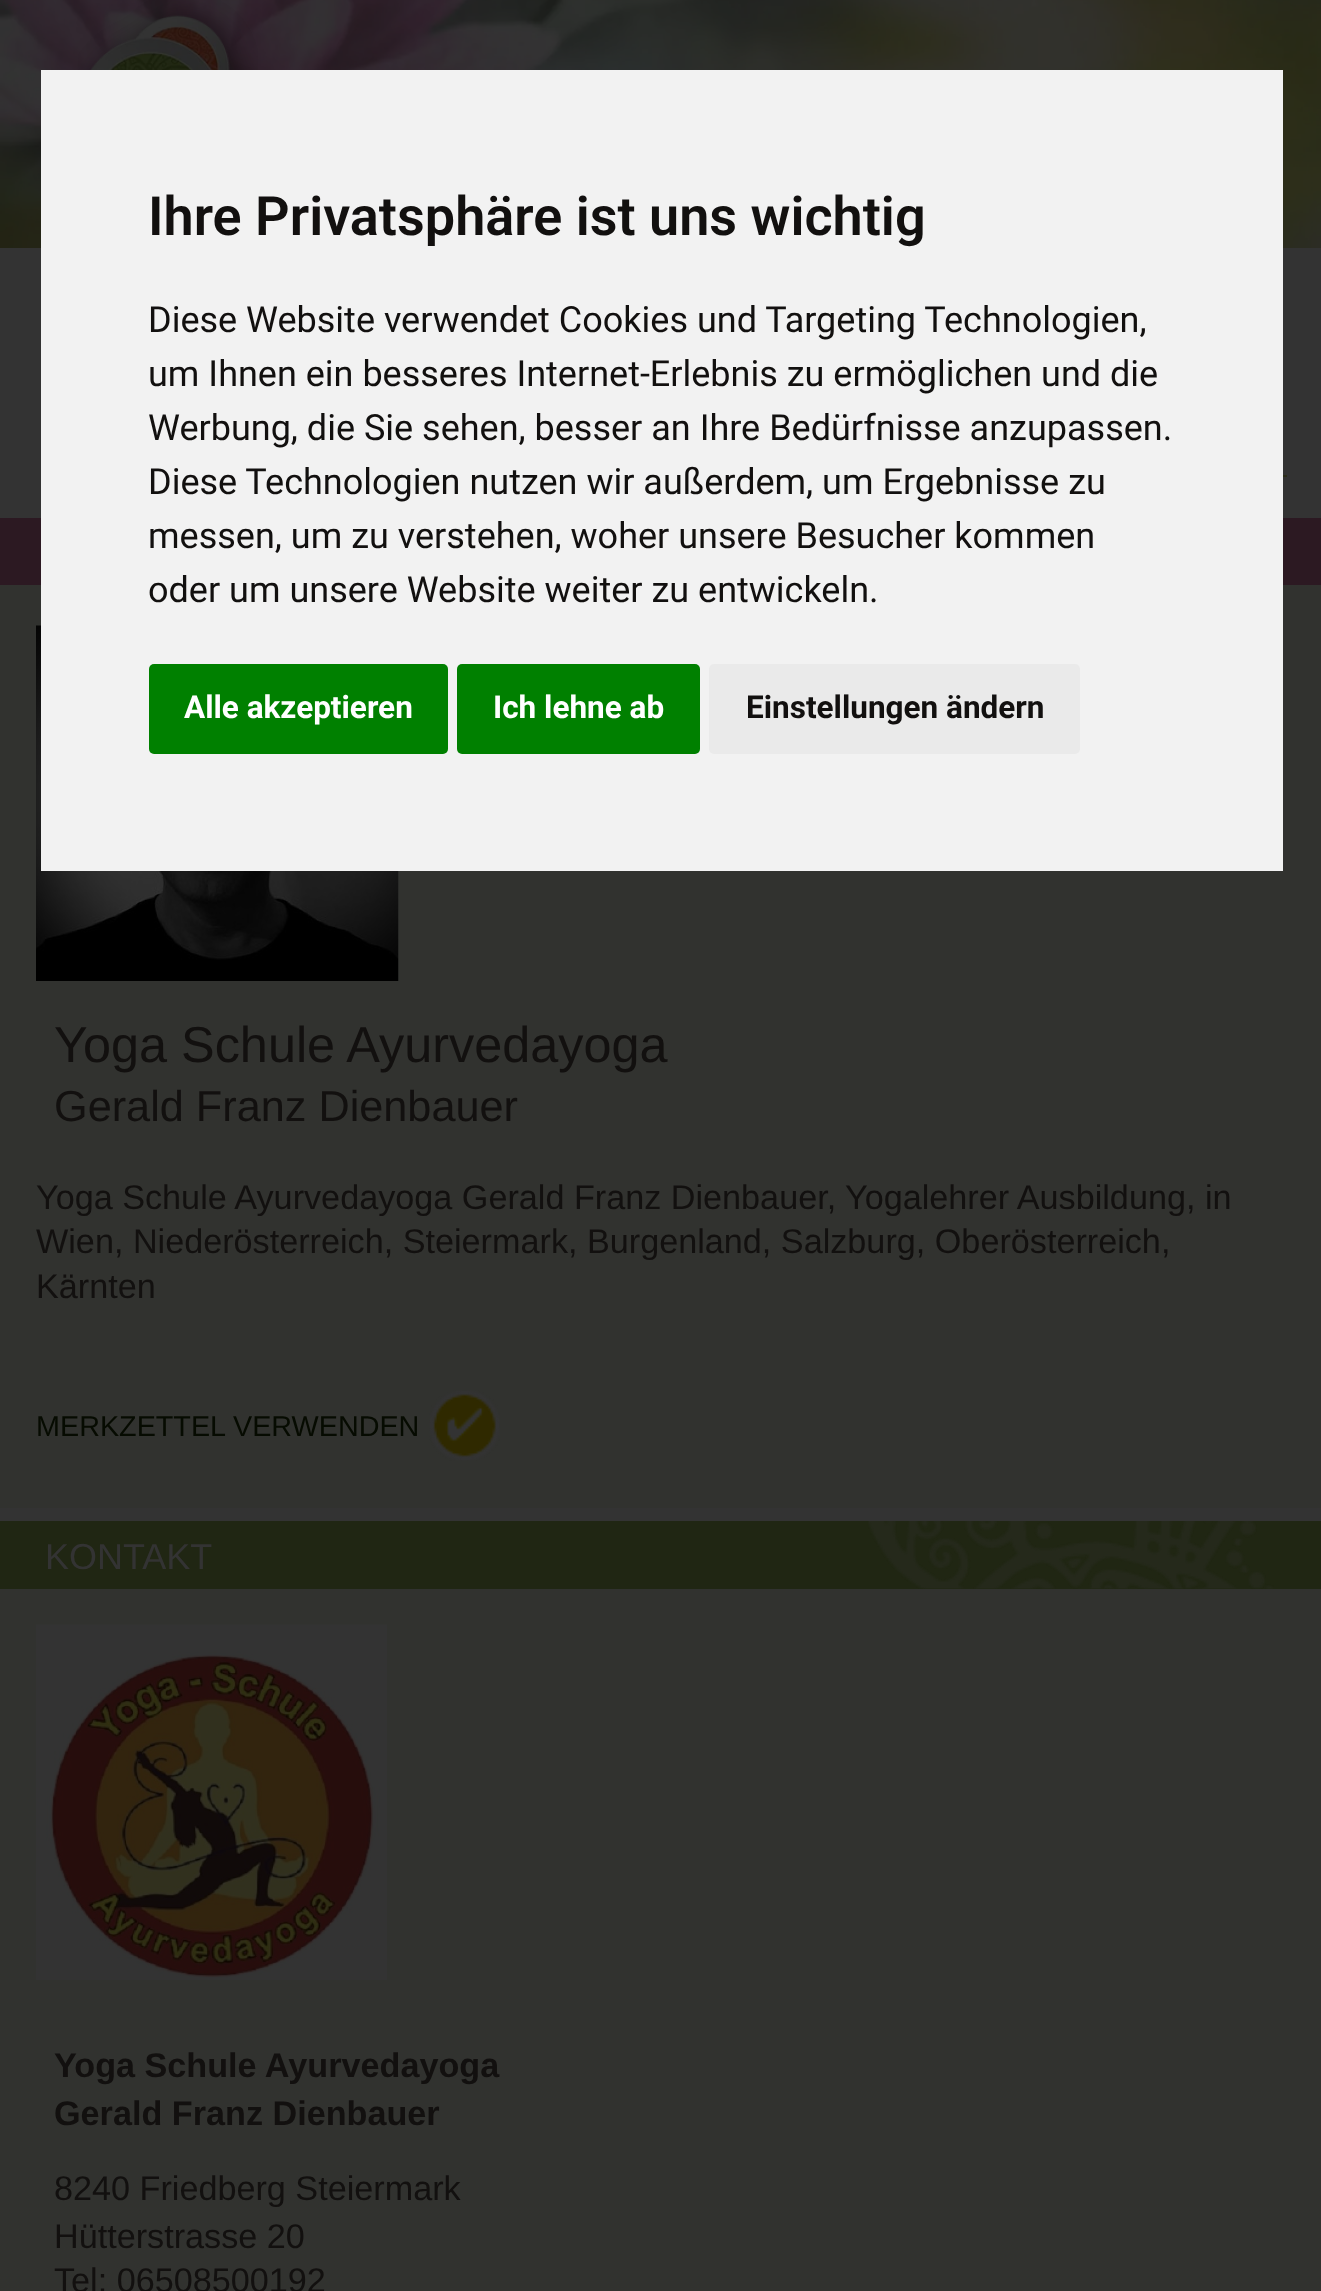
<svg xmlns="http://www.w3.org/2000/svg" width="1321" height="2291">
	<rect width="100%" height="100%" fill="#FFFFFF" />
	<image x="0" y="0" width="1321" height="248" href="assets/img1.png" />
	<rect x="0" y="248" width="1321" height="1273" fill="#333333" />
	<rect x="0" y="585" width="1321" height="923" fill="#31322F" />
	<rect x="0" y="518" width="1321" height="67" fill="#2C1922" />
	<image x="36" y="625" width="363" height="356" href="assets/img3.png" />
	<rect x="41" y="70" width="1242" height="801" fill="#F2F2F2" />
	<text x="148" y="235" font-family="Roboto" font-size="54" font-weight="600" fill="#12100F">Ihre Privatsphäre ist uns wichtig</text>
	<g font-family="Roboto" font-size="36" fill="#12100F">
		<text x="148" y="332">Diese Website verwendet Cookies und Targeting Technologien,</text>
		<text x="148" y="386">um Ihnen ein besseres Internet-Erlebnis zu ermöglichen und die</text>
		<text x="148" y="440">Werbung, die Sie sehen, besser an Ihre Bedürfnisse anzupassen.</text>
		<text x="148" y="494">Diese Technologien nutzen wir außerdem, um Ergebnisse zu</text>
		<text x="148" y="548">messen, um zu verstehen, woher unsere Besucher kommen</text>
		<text x="148" y="602">oder um unsere Website weiter zu entwickeln.</text>
	</g>
	<rect x="149" y="664" width="299" height="90" rx="5" fill="#008000" />
	<text x="184" y="718" font-family="Roboto" font-size="31.5" font-weight="700" fill="#FFFFFF">Alle akzeptieren</text>
	<rect x="457" y="664" width="243" height="90" rx="5" fill="#008000" />
	<text x="493" y="718" font-family="Roboto" font-size="31.5" font-weight="700" fill="#FFFFFF">Ich lehne ab</text>
	<rect x="709" y="664" width="371" height="90" rx="5" fill="#EAEAEA" />
	<text x="746" y="718" font-family="Roboto" font-size="31.5" font-weight="700" fill="#12100F">Einstellungen ändern</text>
	<image x="78" y="0" width="180" height="70" href="assets/img2.png" />
	<rect x="1283" y="475" width="4" height="2" fill="#2B2D19" />
	<text x="54" y="1062" font-family="Liberation Sans" font-size="50.4" fill="#12100F">Yoga Schule Ayurvedayoga</text>
	<text x="54" y="1121" font-family="Liberation Sans" font-size="43.25" fill="#12100F">Gerald Franz Dienbauer</text>
	<g font-family="Liberation Sans" font-size="34.2" fill="#12100F">
		<text x="36" y="1209">Yoga Schule Ayurvedayoga Gerald Franz Dienbauer, Yogalehrer Ausbildung, in</text>
		<text x="36" y="1253">Wien, Niederösterreich, Steiermark, Burgenland, Salzburg, Oberösterreich,</text>
		<text x="36" y="1298">Kärnten</text>
	</g>
	<image x="429" y="1390" width="71" height="71" href="assets/img4.png" />
	<text x="36" y="1436" font-family="Liberation Sans" font-size="28.75" fill="#060B01">MERKZETTEL VERWENDEN</text>
	<rect x="0" y="1589" width="1321" height="702" fill="#31322F" />
	<rect x="0" y="1521" width="1321" height="68" fill="#202613" />
	<image x="868" y="1521" width="406" height="68" href="assets/img5.png" />
	<text x="45" y="1569" font-family="Liberation Sans" font-size="36" fill="#333333">KONTAKT</text>
	<image x="36" y="1624" width="351" height="356" href="assets/img6.png" />
	<g font-family="Liberation Sans" font-size="34.2" font-weight="700" fill="#12100F">
		<text x="54" y="2077">Yoga Schule Ayurvedayoga</text>
		<text x="54" y="2125">Gerald Franz Dienbauer</text>
	</g>
	<g font-family="Liberation Sans" font-size="34.2" fill="#12100F">
		<text x="54" y="2200">8240 Friedberg Steiermark</text>
		<text x="54" y="2248">Hütterstrasse 20</text>
		<text x="54" y="2292">Tel: 06508500192</text>
	</g>
</svg>
